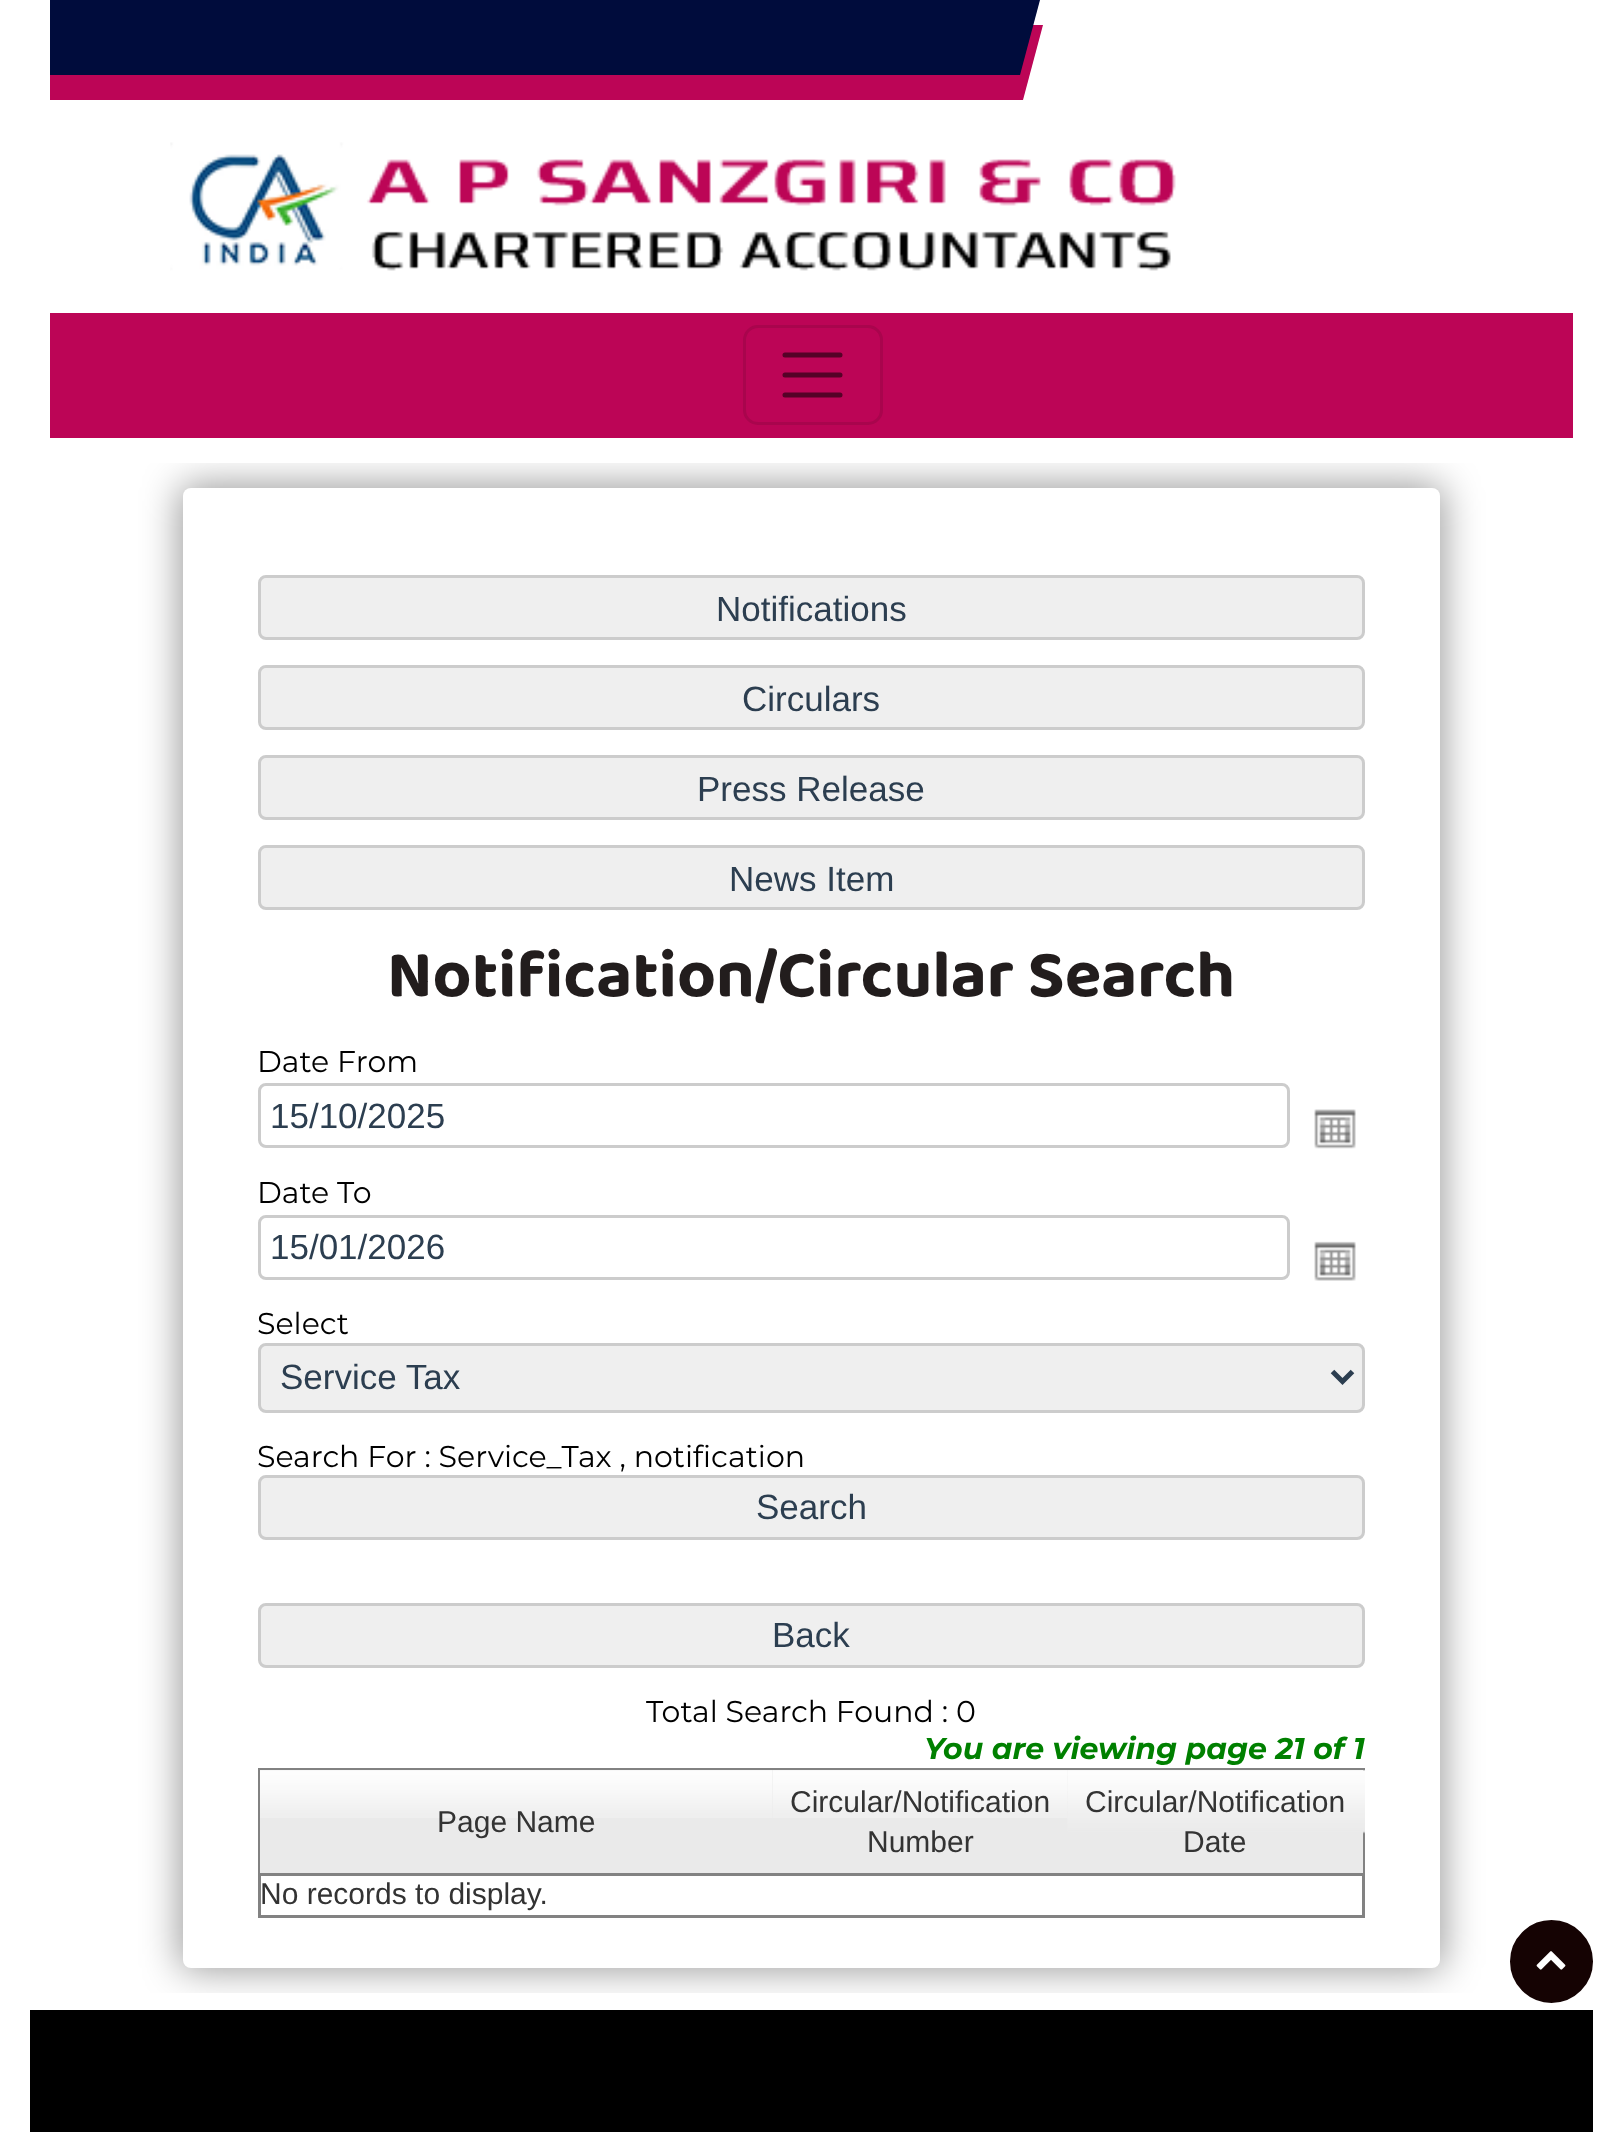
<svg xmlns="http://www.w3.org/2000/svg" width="1622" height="2132">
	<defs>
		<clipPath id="clip1"><rect x="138" y="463" width="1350" height="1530" /></clipPath>
	</defs>
	<rect width="100%" height="100%" fill="#FFFFFF" />
	<path d="M50 25V100H1023L1043 25Z" fill="#BC0556" />
	<path d="M50 0V75H1020L1040 0Z" fill="#000C3C" />
	<image x="170" y="142" width="1006" height="129" href="assets/img1.png" />
	<rect x="30" y="2010" width="1563" height="122" fill="#000000" />
	<g clip-path="url(#clip1)">
		<rect x="180" y="485" width="1263" height="1485" rx="10" fill="#000000" fill-opacity="0.4" filter="blur(19px)" />
	</g>
	<rect x="50" y="313" width="1523" height="125" fill="#BC0556" />
	<rect x="744.5" y="326.5" width="137" height="97" rx="13.5" fill="none" stroke="#A9054D" stroke-width="3" />
	<path d="M785 355H840M785 375H840M785 395H840" fill="none" stroke="#550227" stroke-width="5" stroke-linecap="round" />
	<rect x="183" y="488" width="1257" height="1480" rx="8" fill="#FFFFFF" />
	<rect x="259.5" y="576.5" width="1104" height="62" rx="6.5" fill="#EFEFEF" stroke="#CCCCCC" stroke-width="3" />
	<text x="716" y="621" font-family="Liberation Sans" font-size="35" fill="#2C3E50">Notifications</text>
	<rect x="259.5" y="666.5" width="1104" height="62" rx="6.5" fill="#EFEFEF" stroke="#CCCCCC" stroke-width="3" />
	<text x="742" y="711" font-family="Liberation Sans" font-size="35" fill="#2C3E50">Circulars</text>
	<rect x="259.5" y="756.5" width="1104" height="62" rx="6.5" fill="#EFEFEF" stroke="#CCCCCC" stroke-width="3" />
	<text x="697" y="801" font-family="Liberation Sans" font-size="35" fill="#2C3E50">Press Release</text>
	<rect x="259.5" y="846.5" width="1104" height="62" rx="6.5" fill="#EFEFEF" stroke="#CCCCCC" stroke-width="3" />
	<text x="729" y="891" font-family="Liberation Sans" font-size="35" fill="#2C3E50">News Item</text>
	<text x="387" y="996" font-family="'Baloo Thambi 2'" font-size="67.6" font-weight="700" fill="#221D1D">Notification/Circular Search</text>
	<text x="257" y="1072" font-family="Montserrat" font-size="30" fill="#000000">Date From</text>
	<rect x="259.5" y="1084.5" width="1029" height="62" rx="6.5" fill="none" stroke="#CCCCCC" stroke-width="3" />
	<text x="270" y="1128" font-family="Liberation Sans" font-size="35" fill="#2C3E50">15/10/2025</text>
	<image x="1314" y="1109" width="42" height="40" href="assets/img2.png" />
	<text x="257" y="1203" font-family="Montserrat" font-size="30" fill="#000000">Date To</text>
	<rect x="259.5" y="1216.5" width="1029" height="62" rx="6.5" fill="none" stroke="#CCCCCC" stroke-width="3" />
	<text x="270" y="1259" font-family="Liberation Sans" font-size="35" fill="#2C3E50">15/01/2026</text>
	<image x="1314" y="1241" width="42" height="40" href="assets/img3.png" />
	<text x="257" y="1334" font-family="Montserrat" font-size="30" fill="#000000">Select</text>
	<rect x="259.5" y="1344.5" width="1104" height="67" rx="6.5" fill="#EFEFEF" stroke="#CCCCCC" stroke-width="3" />
	<path d="M1332.5 1371.5L1342.5 1381.5L1352.5 1371.5" fill="none" stroke="#2C3E50" stroke-width="5" />
	<text x="280" y="1389" font-family="Liberation Sans" font-size="35" fill="#2C3E50">Service Tax</text>
	<text x="257" y="1467" font-family="Montserrat" font-size="30" fill="#000000">Search For : Service_Tax , notification</text>
	<rect x="259.5" y="1476.5" width="1104" height="62" rx="6.5" fill="#EFEFEF" stroke="#CCCCCC" stroke-width="3" />
	<text x="756" y="1519" font-family="Liberation Sans" font-size="35" fill="#2C3E50">Search</text>
	<rect x="259.5" y="1604.5" width="1104" height="62" rx="6.5" fill="#EFEFEF" stroke="#CCCCCC" stroke-width="3" />
	<text x="772" y="1647" font-family="Liberation Sans" font-size="35" fill="#2C3E50">Back</text>
	<text x="646" y="1722" font-family="Montserrat" font-size="30" fill="#000000">Total Search Found : 0</text>
	<text x="924" y="1759" font-family="Montserrat" font-size="30" font-weight="700" font-style="italic" fill="#008000">You are viewing page 21 of 1</text>
	<rect x="259.5" y="1769.5" width="1104" height="147" fill="none" stroke="#828282" stroke-width="3" />
	<rect x="260" y="1770" width="1103" height="103" fill="#EAEAEA" />
	<image x="260" y="1770" width="513" height="48" href="assets/img4.png" />
	<rect x="260" y="1873" width="1103" height="3" fill="#828282" />
	<text x="437" y="1832" font-family="Liberation Sans" font-size="30" fill="#333333">Page Name</text>
	<image x="773" y="1770" width="295" height="48" href="assets/img5.png" />
	<g font-family="Liberation Sans" font-size="30" fill="#333333">
		<text x="790" y="1812">Circular/Notification</text>
		<text x="867" y="1852">Number</text>
	</g>
	<image x="1067" y="1770" width="298" height="64" href="assets/img6.png" />
	<g font-family="Liberation Sans" font-size="30" fill="#333333">
		<text x="1085" y="1812">Circular/Notification</text>
		<text x="1183" y="1852">Date</text>
		<text x="260" y="1904">No records to display.</text>
	</g>
	<circle cx="1551.5" cy="1961.5" r="44" fill="#150303" stroke="#FFFFFF" stroke-width="5" />
	<image x="1536" y="1951" width="30" height="19" href="assets/img7.png" />
</svg>
